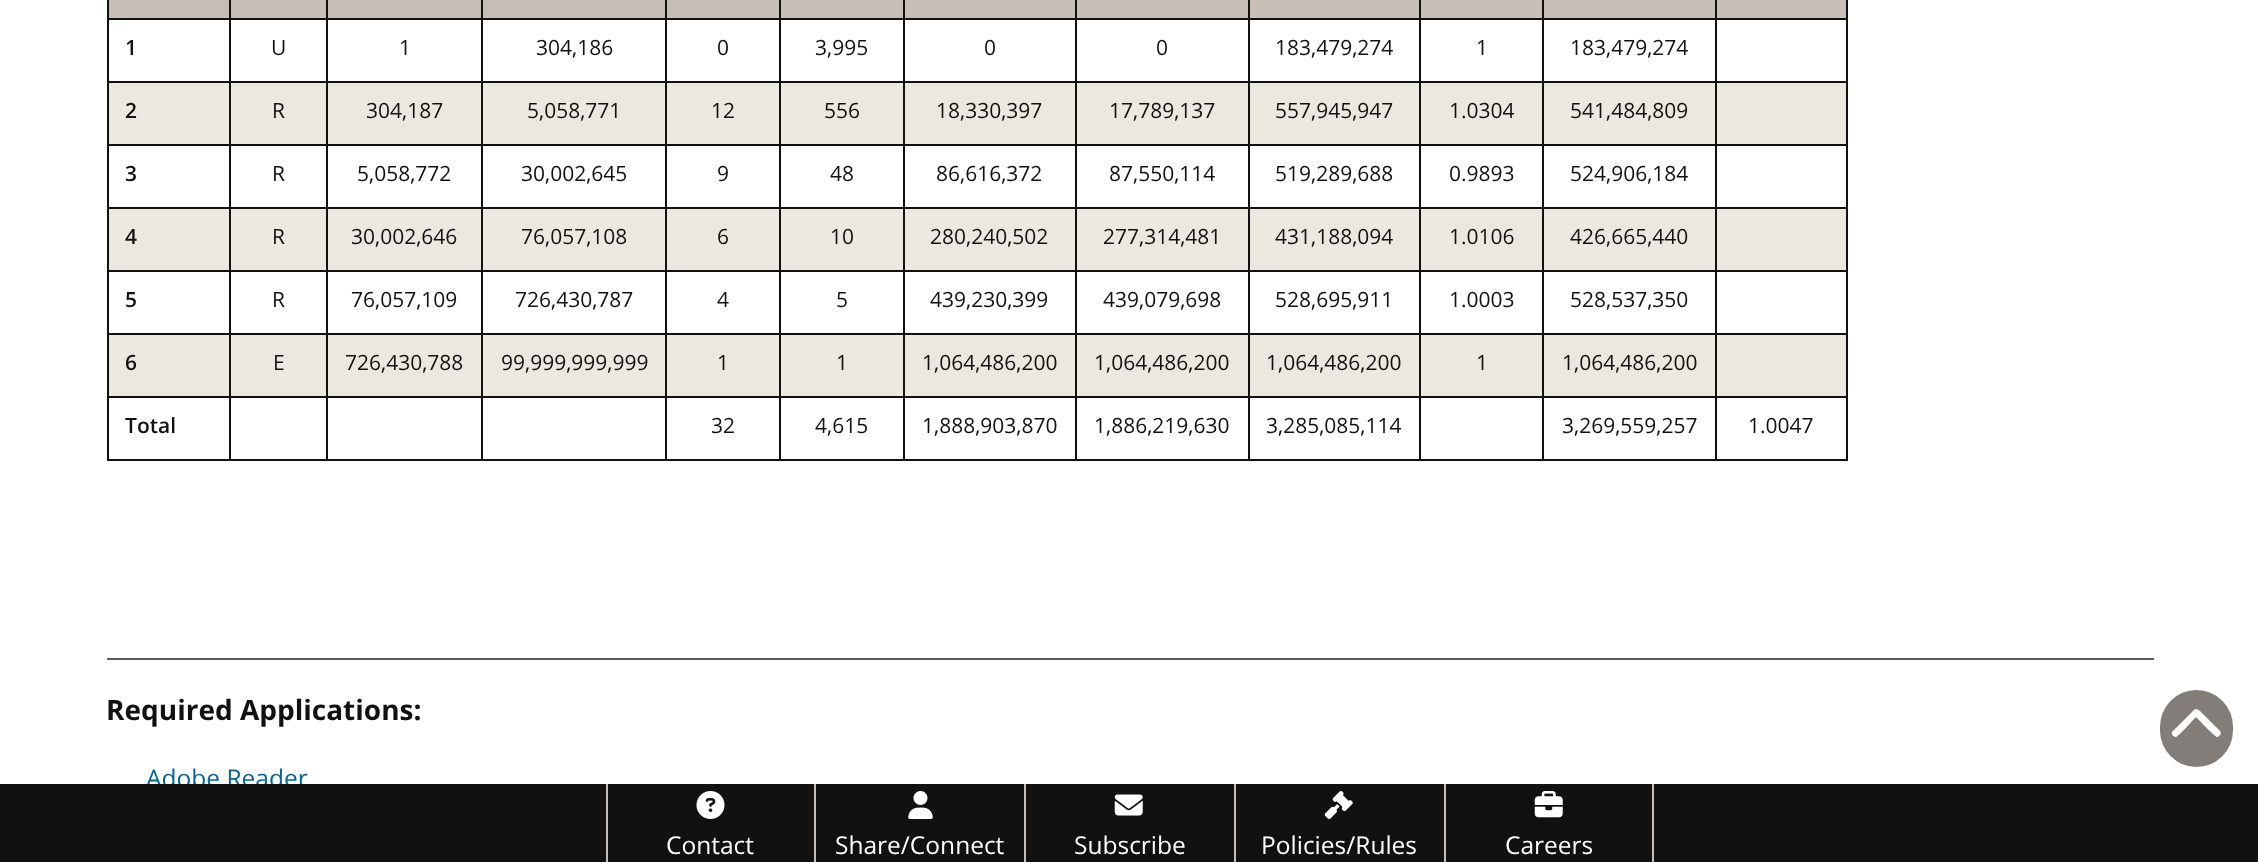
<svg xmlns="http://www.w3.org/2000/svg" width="2258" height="862">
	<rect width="100%" height="100%" fill="#FFFFFF" />
	<rect x="109" y="0" width="1737" height="18" fill="#C5BFB5" />
	<rect x="1715" y="18" width="133" height="2" fill="#111111" />
	<rect x="1715" y="81" width="133" height="2" fill="#111111" />
	<rect x="109" y="83" width="1737" height="61" fill="#EBE8E0" />
	<rect x="1715" y="144" width="133" height="2" fill="#111111" />
	<rect x="1715" y="207" width="133" height="2" fill="#111111" />
	<rect x="109" y="209" width="1737" height="61" fill="#EBE8E0" />
	<rect x="1715" y="270" width="133" height="2" fill="#111111" />
	<rect x="1715" y="333" width="133" height="2" fill="#111111" />
	<rect x="109" y="335" width="1737" height="61" fill="#EBE8E0" />
	<rect x="1715" y="396" width="133" height="2" fill="#111111" />
	<rect x="1846" y="396" width="2" height="64" fill="#111111" />
	<rect x="1715" y="459" width="133" height="2" fill="#111111" />
	<rect x="1715" y="396" width="2" height="64" fill="#111111" />
	<rect x="1542" y="396" width="175" height="2" fill="#111111" />
	<rect x="1715" y="333" width="2" height="64" fill="#111111" />
	<rect x="1542" y="333" width="175" height="2" fill="#111111" />
	<rect x="1715" y="270" width="2" height="64" fill="#111111" />
	<rect x="1542" y="270" width="175" height="2" fill="#111111" />
	<rect x="1715" y="207" width="2" height="64" fill="#111111" />
	<rect x="1542" y="207" width="175" height="2" fill="#111111" />
	<rect x="1715" y="144" width="2" height="64" fill="#111111" />
	<rect x="1542" y="144" width="175" height="2" fill="#111111" />
	<rect x="1715" y="81" width="2" height="64" fill="#111111" />
	<rect x="1542" y="81" width="175" height="2" fill="#111111" />
	<rect x="1715" y="18" width="2" height="64" fill="#111111" />
	<rect x="1542" y="18" width="175" height="2" fill="#111111" />
	<rect x="1542" y="459" width="175" height="2" fill="#111111" />
	<rect x="1542" y="396" width="2" height="64" fill="#111111" />
	<rect x="1419" y="396" width="125" height="2" fill="#111111" />
	<rect x="1542" y="333" width="2" height="64" fill="#111111" />
	<rect x="1419" y="333" width="125" height="2" fill="#111111" />
	<rect x="1542" y="270" width="2" height="64" fill="#111111" />
	<rect x="1419" y="270" width="125" height="2" fill="#111111" />
	<rect x="1542" y="207" width="2" height="64" fill="#111111" />
	<rect x="1419" y="207" width="125" height="2" fill="#111111" />
	<rect x="1542" y="144" width="2" height="64" fill="#111111" />
	<rect x="1419" y="144" width="125" height="2" fill="#111111" />
	<rect x="1542" y="81" width="2" height="64" fill="#111111" />
	<rect x="1419" y="81" width="125" height="2" fill="#111111" />
	<rect x="1542" y="18" width="2" height="64" fill="#111111" />
	<rect x="1419" y="18" width="125" height="2" fill="#111111" />
	<rect x="1419" y="459" width="125" height="2" fill="#111111" />
	<rect x="1419" y="396" width="2" height="64" fill="#111111" />
	<rect x="1248" y="396" width="173" height="2" fill="#111111" />
	<rect x="1419" y="333" width="2" height="64" fill="#111111" />
	<rect x="1248" y="333" width="173" height="2" fill="#111111" />
	<rect x="1419" y="270" width="2" height="64" fill="#111111" />
	<rect x="1248" y="270" width="173" height="2" fill="#111111" />
	<rect x="1419" y="207" width="2" height="64" fill="#111111" />
	<rect x="1248" y="207" width="173" height="2" fill="#111111" />
	<rect x="1419" y="144" width="2" height="64" fill="#111111" />
	<rect x="1248" y="144" width="173" height="2" fill="#111111" />
	<rect x="1419" y="81" width="2" height="64" fill="#111111" />
	<rect x="1248" y="81" width="173" height="2" fill="#111111" />
	<rect x="1419" y="18" width="2" height="64" fill="#111111" />
	<rect x="1248" y="18" width="173" height="2" fill="#111111" />
	<rect x="1248" y="459" width="173" height="2" fill="#111111" />
	<rect x="1248" y="396" width="2" height="64" fill="#111111" />
	<rect x="1075" y="396" width="175" height="2" fill="#111111" />
	<rect x="1248" y="333" width="2" height="64" fill="#111111" />
	<rect x="1075" y="333" width="175" height="2" fill="#111111" />
	<rect x="1248" y="270" width="2" height="64" fill="#111111" />
	<rect x="1075" y="270" width="175" height="2" fill="#111111" />
	<rect x="1248" y="207" width="2" height="64" fill="#111111" />
	<rect x="1075" y="207" width="175" height="2" fill="#111111" />
	<rect x="1248" y="144" width="2" height="64" fill="#111111" />
	<rect x="1075" y="144" width="175" height="2" fill="#111111" />
	<rect x="1248" y="81" width="2" height="64" fill="#111111" />
	<rect x="1075" y="81" width="175" height="2" fill="#111111" />
	<rect x="1248" y="18" width="2" height="64" fill="#111111" />
	<rect x="1075" y="18" width="175" height="2" fill="#111111" />
	<rect x="1075" y="459" width="175" height="2" fill="#111111" />
	<rect x="1075" y="396" width="2" height="64" fill="#111111" />
	<rect x="903" y="396" width="173" height="2" fill="#111111" />
	<rect x="1075" y="333" width="2" height="64" fill="#111111" />
	<rect x="903" y="333" width="173" height="2" fill="#111111" />
	<rect x="1075" y="270" width="2" height="64" fill="#111111" />
	<rect x="903" y="270" width="173" height="2" fill="#111111" />
	<rect x="1075" y="207" width="2" height="64" fill="#111111" />
	<rect x="903" y="207" width="173" height="2" fill="#111111" />
	<rect x="1075" y="144" width="2" height="64" fill="#111111" />
	<rect x="903" y="144" width="173" height="2" fill="#111111" />
	<rect x="1075" y="81" width="2" height="64" fill="#111111" />
	<rect x="903" y="81" width="173" height="2" fill="#111111" />
	<rect x="1075" y="18" width="2" height="64" fill="#111111" />
	<rect x="903" y="18" width="173" height="2" fill="#111111" />
	<rect x="903" y="459" width="173" height="2" fill="#111111" />
	<rect x="903" y="396" width="2" height="64" fill="#111111" />
	<rect x="779" y="396" width="126" height="2" fill="#111111" />
	<rect x="903" y="333" width="2" height="64" fill="#111111" />
	<rect x="779" y="333" width="126" height="2" fill="#111111" />
	<rect x="903" y="270" width="2" height="64" fill="#111111" />
	<rect x="779" y="270" width="126" height="2" fill="#111111" />
	<rect x="903" y="207" width="2" height="64" fill="#111111" />
	<rect x="779" y="207" width="126" height="2" fill="#111111" />
	<rect x="903" y="144" width="2" height="64" fill="#111111" />
	<rect x="779" y="144" width="126" height="2" fill="#111111" />
	<rect x="903" y="81" width="2" height="64" fill="#111111" />
	<rect x="779" y="81" width="126" height="2" fill="#111111" />
	<rect x="903" y="18" width="2" height="64" fill="#111111" />
	<rect x="779" y="18" width="126" height="2" fill="#111111" />
	<rect x="779" y="459" width="126" height="2" fill="#111111" />
	<rect x="779" y="396" width="2" height="64" fill="#111111" />
	<rect x="665" y="396" width="116" height="2" fill="#111111" />
	<rect x="779" y="333" width="2" height="64" fill="#111111" />
	<rect x="665" y="333" width="116" height="2" fill="#111111" />
	<rect x="779" y="270" width="2" height="64" fill="#111111" />
	<rect x="665" y="270" width="116" height="2" fill="#111111" />
	<rect x="779" y="207" width="2" height="64" fill="#111111" />
	<rect x="665" y="207" width="116" height="2" fill="#111111" />
	<rect x="779" y="144" width="2" height="64" fill="#111111" />
	<rect x="665" y="144" width="116" height="2" fill="#111111" />
	<rect x="779" y="81" width="2" height="64" fill="#111111" />
	<rect x="665" y="81" width="116" height="2" fill="#111111" />
	<rect x="779" y="18" width="2" height="64" fill="#111111" />
	<rect x="665" y="18" width="116" height="2" fill="#111111" />
	<rect x="665" y="459" width="116" height="2" fill="#111111" />
	<rect x="665" y="396" width="2" height="64" fill="#111111" />
	<rect x="481" y="396" width="186" height="2" fill="#111111" />
	<rect x="665" y="333" width="2" height="64" fill="#111111" />
	<rect x="481" y="333" width="186" height="2" fill="#111111" />
	<rect x="665" y="270" width="2" height="64" fill="#111111" />
	<rect x="481" y="270" width="186" height="2" fill="#111111" />
	<rect x="665" y="207" width="2" height="64" fill="#111111" />
	<rect x="481" y="207" width="186" height="2" fill="#111111" />
	<rect x="665" y="144" width="2" height="64" fill="#111111" />
	<rect x="481" y="144" width="186" height="2" fill="#111111" />
	<rect x="665" y="81" width="2" height="64" fill="#111111" />
	<rect x="481" y="81" width="186" height="2" fill="#111111" />
	<rect x="665" y="18" width="2" height="64" fill="#111111" />
	<rect x="481" y="18" width="186" height="2" fill="#111111" />
	<rect x="481" y="459" width="186" height="2" fill="#111111" />
	<rect x="481" y="396" width="2" height="64" fill="#111111" />
	<rect x="326" y="396" width="157" height="2" fill="#111111" />
	<rect x="481" y="333" width="2" height="64" fill="#111111" />
	<rect x="326" y="333" width="157" height="2" fill="#111111" />
	<rect x="481" y="270" width="2" height="64" fill="#111111" />
	<rect x="326" y="270" width="157" height="2" fill="#111111" />
	<rect x="481" y="207" width="2" height="64" fill="#111111" />
	<rect x="326" y="207" width="157" height="2" fill="#111111" />
	<rect x="481" y="144" width="2" height="64" fill="#111111" />
	<rect x="326" y="144" width="157" height="2" fill="#111111" />
	<rect x="481" y="81" width="2" height="64" fill="#111111" />
	<rect x="326" y="81" width="157" height="2" fill="#111111" />
	<rect x="481" y="18" width="2" height="64" fill="#111111" />
	<rect x="326" y="18" width="157" height="2" fill="#111111" />
	<rect x="326" y="459" width="157" height="2" fill="#111111" />
	<rect x="326" y="396" width="2" height="64" fill="#111111" />
	<rect x="229" y="396" width="98" height="2" fill="#111111" />
	<rect x="326" y="333" width="2" height="64" fill="#111111" />
	<rect x="229" y="333" width="98" height="2" fill="#111111" />
	<rect x="326" y="270" width="2" height="64" fill="#111111" />
	<rect x="229" y="270" width="98" height="2" fill="#111111" />
	<rect x="326" y="207" width="2" height="64" fill="#111111" />
	<rect x="229" y="207" width="98" height="2" fill="#111111" />
	<rect x="326" y="144" width="2" height="64" fill="#111111" />
	<rect x="229" y="144" width="98" height="2" fill="#111111" />
	<rect x="326" y="81" width="2" height="64" fill="#111111" />
	<rect x="229" y="81" width="98" height="2" fill="#111111" />
	<rect x="326" y="18" width="2" height="64" fill="#111111" />
	<rect x="229" y="18" width="98" height="2" fill="#111111" />
	<rect x="229" y="459" width="98" height="2" fill="#111111" />
	<rect x="229" y="396" width="2" height="64" fill="#111111" />
	<rect x="107" y="396" width="124" height="2" fill="#111111" />
	<rect x="229" y="333" width="2" height="64" fill="#111111" />
	<rect x="107" y="333" width="124" height="2" fill="#111111" />
	<rect x="229" y="270" width="2" height="64" fill="#111111" />
	<rect x="107" y="270" width="124" height="2" fill="#111111" />
	<rect x="229" y="207" width="2" height="64" fill="#111111" />
	<rect x="107" y="207" width="124" height="2" fill="#111111" />
	<rect x="229" y="144" width="2" height="64" fill="#111111" />
	<rect x="107" y="144" width="124" height="2" fill="#111111" />
	<rect x="229" y="81" width="2" height="64" fill="#111111" />
	<rect x="107" y="81" width="124" height="2" fill="#111111" />
	<rect x="229" y="18" width="2" height="64" fill="#111111" />
	<rect x="107" y="18" width="124" height="2" fill="#111111" />
	<rect x="229" y="0" width="2" height="19" fill="#111111" />
	<rect x="326" y="0" width="2" height="19" fill="#111111" />
	<rect x="481" y="0" width="2" height="19" fill="#111111" />
	<rect x="665" y="0" width="2" height="19" fill="#111111" />
	<rect x="779" y="0" width="2" height="19" fill="#111111" />
	<rect x="903" y="0" width="2" height="19" fill="#111111" />
	<rect x="1075" y="0" width="2" height="19" fill="#111111" />
	<rect x="1248" y="0" width="2" height="19" fill="#111111" />
	<rect x="1419" y="0" width="2" height="19" fill="#111111" />
	<rect x="1542" y="0" width="2" height="19" fill="#111111" />
	<rect x="1715" y="0" width="2" height="19" fill="#111111" />
	<rect x="107" y="459" width="124" height="2" fill="#111111" />
	<rect x="107" y="396" width="2" height="64" fill="#111111" />
	<rect x="107" y="333" width="2" height="64" fill="#111111" />
	<rect x="107" y="270" width="2" height="64" fill="#111111" />
	<rect x="107" y="207" width="2" height="64" fill="#111111" />
	<rect x="107" y="144" width="2" height="64" fill="#111111" />
	<rect x="107" y="81" width="2" height="64" fill="#111111" />
	<rect x="107" y="0" width="2" height="82" fill="#111111" />
	<text x="125" y="55" font-family="Open Sans" font-size="21" font-weight="600" fill="#111111">1</text>
	<g font-family="Open Sans" font-size="21" fill="#111111">
		<text x="271" y="55">U</text>
		<text x="399" y="55">1</text>
		<text x="536" y="55">304,186</text>
		<text x="717" y="55">0</text>
		<text x="815" y="55">3,995</text>
		<text x="984" y="55">0</text>
		<text x="1156" y="55">0</text>
		<text x="1275" y="55">183,479,274</text>
		<text x="1476" y="55">1</text>
		<text x="1570" y="55">183,479,274</text>
	</g>
	<rect x="1846" y="333" width="2" height="64" fill="#111111" />
	<rect x="1846" y="270" width="2" height="64" fill="#111111" />
	<rect x="1846" y="207" width="2" height="64" fill="#111111" />
	<rect x="1846" y="144" width="2" height="64" fill="#111111" />
	<rect x="1846" y="81" width="2" height="64" fill="#111111" />
	<rect x="1846" y="0" width="2" height="82" fill="#111111" />
	<text x="125" y="118" font-family="Open Sans" font-size="21" font-weight="600" fill="#111111">2</text>
	<g font-family="Open Sans" font-size="21" fill="#111111">
		<text x="272" y="118">R</text>
		<text x="366" y="118">304,187</text>
		<text x="527" y="118">5,058,771</text>
		<text x="711" y="118">12</text>
		<text x="824" y="118">556</text>
		<text x="936" y="118">18,330,397</text>
		<text x="1109" y="118">17,789,137</text>
		<text x="1275" y="118">557,945,947</text>
		<text x="1449" y="118">1.0304</text>
		<text x="1570" y="118">541,484,809</text>
	</g>
	<text x="125" y="181" font-family="Open Sans" font-size="21" font-weight="600" fill="#111111">3</text>
	<g font-family="Open Sans" font-size="21" fill="#111111">
		<text x="272" y="181">R</text>
		<text x="357" y="181">5,058,772</text>
		<text x="521" y="181">30,002,645</text>
		<text x="717" y="181">9</text>
		<text x="830" y="181">48</text>
		<text x="936" y="181">86,616,372</text>
		<text x="1109" y="181">87,550,114</text>
		<text x="1275" y="181">519,289,688</text>
		<text x="1449" y="181">0.9893</text>
		<text x="1570" y="181">524,906,184</text>
	</g>
	<text x="125" y="244" font-family="Open Sans" font-size="21" font-weight="600" fill="#111111">4</text>
	<g font-family="Open Sans" font-size="21" fill="#111111">
		<text x="272" y="244">R</text>
		<text x="351" y="244">30,002,646</text>
		<text x="521" y="244">76,057,108</text>
		<text x="717" y="244">6</text>
		<text x="830" y="244">10</text>
		<text x="930" y="244">280,240,502</text>
		<text x="1103" y="244">277,314,481</text>
		<text x="1275" y="244">431,188,094</text>
		<text x="1449" y="244">1.0106</text>
		<text x="1570" y="244">426,665,440</text>
	</g>
	<text x="125" y="307" font-family="Open Sans" font-size="21" font-weight="600" fill="#111111">5</text>
	<g font-family="Open Sans" font-size="21" fill="#111111">
		<text x="272" y="307">R</text>
		<text x="351" y="307">76,057,109</text>
		<text x="515" y="307">726,430,787</text>
		<text x="717" y="307">4</text>
		<text x="836" y="307">5</text>
		<text x="930" y="307">439,230,399</text>
		<text x="1103" y="307">439,079,698</text>
		<text x="1275" y="307">528,695,911</text>
		<text x="1449" y="307">1.0003</text>
		<text x="1570" y="307">528,537,350</text>
	</g>
	<text x="125" y="370" font-family="Open Sans" font-size="21" font-weight="600" fill="#111111">6</text>
	<g font-family="Open Sans" font-size="21" fill="#111111">
		<text x="273" y="370">E</text>
		<text x="345" y="370">726,430,788</text>
		<text x="501" y="370">99,999,999,999</text>
		<text x="717" y="370">1</text>
		<text x="836" y="370">1</text>
		<text x="922" y="370">1,064,486,200</text>
		<text x="1094" y="370">1,064,486,200</text>
		<text x="1266" y="370">1,064,486,200</text>
		<text x="1476" y="370">1</text>
		<text x="1562" y="370">1,064,486,200</text>
	</g>
	<text x="125" y="433" font-family="Open Sans" font-size="21" font-weight="600" fill="#111111">Total</text>
	<g font-family="Open Sans" font-size="21" fill="#111111">
		<text x="711" y="433">32</text>
		<text x="815" y="433">4,615</text>
		<text x="922" y="433">1,888,903,870</text>
		<text x="1094" y="433">1,886,219,630</text>
		<text x="1266" y="433">3,285,085,114</text>
		<text x="1562" y="433">3,269,559,257</text>
		<text x="1748" y="433">1.0047</text>
	</g>
	<rect x="107" y="658" width="2047" height="2" fill="#5B5755" />
	<text x="106" y="720" font-family="Open Sans" font-size="28" font-weight="700" fill="#111111">Required Applications:</text>
	<text x="146" y="787" font-family="Open Sans" font-size="24.5" fill="#006699">Adobe Reader</text>
	<rect x="2160" y="690" width="73" height="77" rx="36.5" fill="#837D7A" />
	<path d="M2194 710C2197 707 2200 711 2202 713L2216 727C2218 729 2223 732 2220 735C2219 736 2218 737 2217 737C2214 736 2199 720 2196 717C2193 720 2179 736 2176 737C2173 737 2170 733 2173 731Z" fill="#FFFFFF" />
	<rect x="0" y="784" width="2258" height="78" fill="#111111" />
	<rect x="814" y="784" width="2" height="78" fill="#C5BFB5" />
	<rect x="606" y="784" width="2" height="78" fill="#C5BFB5" />
	<image x="696" y="791" width="29" height="28" href="assets/img1.png" />
	<text x="666" y="854" font-family="Open Sans" font-size="24.5" fill="#FFFFFF">Contact</text>
	<rect x="1024" y="784" width="2" height="78" fill="#C5BFB5" />
	<image x="908" y="791" width="25" height="28" href="assets/img2.png" />
	<text x="835" y="854" font-family="Open Sans" font-size="24.5" fill="#FFFFFF">Share/Connect</text>
	<rect x="1234" y="784" width="2" height="78" fill="#C5BFB5" />
	<image x="1114" y="794" width="29" height="22" href="assets/img3.png" />
	<text x="1074" y="854" font-family="Open Sans" font-size="24.5" fill="#FFFFFF">Subscribe</text>
	<rect x="1444" y="784" width="2" height="78" fill="#C5BFB5" />
	<image x="1324" y="791" width="29" height="28" href="assets/img4.png" />
	<text x="1261" y="854" font-family="Open Sans" font-size="24.5" fill="#FFFFFF">Policies/Rules</text>
	<rect x="1652" y="784" width="2" height="78" fill="#C5BFB5" />
	<image x="1534" y="791" width="29" height="27" href="assets/img5.png" />
	<text x="1505" y="854" font-family="Open Sans" font-size="24.5" fill="#FFFFFF">Careers</text>
</svg>
